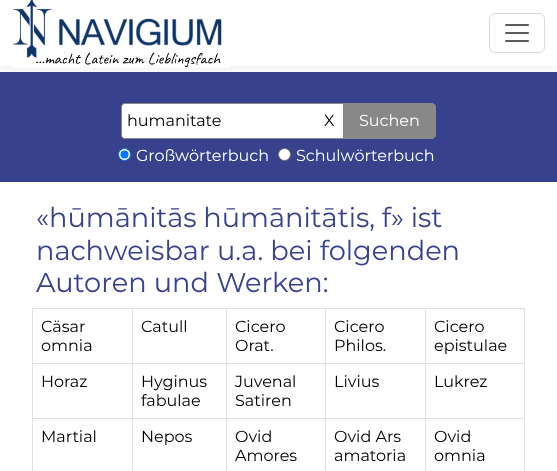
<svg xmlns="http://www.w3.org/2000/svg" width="557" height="471">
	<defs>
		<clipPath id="clip1"><rect x="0" y="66" width="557" height="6" /></clipPath>
	</defs>
	<rect width="100%" height="100%" fill="#FFFFFF" />
	<rect x="0" y="72" width="557" height="110" fill="#38418B" />
	<g clip-path="url(#clip1)">
		<rect x="0" y="0" width="557" height="66" fill="#000000" fill-opacity="0.1" filter="blur(7.5px)" />
	</g>
	<image x="12" y="0" width="218" height="68" href="assets/img1.png" />
	<rect x="489.5" y="13.5" width="55" height="39" rx="5.5" fill="none" stroke="#D9D9D9" />
	<image x="505" y="24" width="24" height="18" href="assets/img2.png" />
	<path d="M125 103.5H343.5V138.5H125C123 138.5 121.5 137 121.5 135V107C121.5 105 123 103.5 125 103.5Z" fill="#FFFFFF" stroke="#888888" />
	<g font-family="Montserrat" font-size="16" fill="#000000">
		<text x="127" y="126">humanitate</text>
		<text x="324" y="126">X</text>
	</g>
	<path d="M343.5 103.5H432C434 103.5 435.5 105 435.5 107V135C435.5 137 434 138.5 432 138.5H343.5Z" fill="#888888" stroke="#888888" />
	<text x="359" y="126" font-family="Montserrat" font-size="16" fill="#FFFFFF">Suchen</text>
	<circle cx="124.5" cy="154.5" r="6" fill="#FFFFFF" stroke="#0075FF" />
	<circle cx="124.5" cy="154.5" r="4" fill="#0075FF" />
	<text x="136" y="161" font-family="Montserrat" font-size="16" fill="#FFFFFF">Großwörterbuch</text>
	<circle cx="284.5" cy="154.5" r="6" fill="#FFFFFF" stroke="#767676" />
	<text x="296" y="161" font-family="Montserrat" font-size="16" fill="#FFFFFF">Schulwörterbuch</text>
	<g font-family="Montserrat" font-size="27.25" fill="#38418B">
		<text x="36" y="227" word-spacing="-0.5">«hūmānitās hūmānitātis, f» ist</text>
		<text x="36" y="260">nachweisbar u.a. bei folgenden</text>
		<text x="36" y="292">Autoren und Werken:</text>
	</g>
	<rect x="32" y="308" width="493" height="1" fill="#DEE2E6" />
	<g font-family="Montserrat" font-size="16" fill="#000000">
		<text x="41" y="332">Cäsar</text>
		<text x="41" y="351">omnia</text>
		<text x="141" y="332">Catull</text>
		<text x="235" y="332">Cicero</text>
		<text x="235" y="351">Orat.</text>
		<text x="334" y="332">Cicero</text>
		<text x="334" y="351">Philos.</text>
		<text x="434" y="332">Cicero</text>
		<text x="434" y="351">epistulae</text>
	</g>
	<rect x="32" y="363" width="493" height="1" fill="#DEE2E6" />
	<g font-family="Montserrat" font-size="16" fill="#000000">
		<text x="41" y="387">Horaz</text>
		<text x="141" y="387">Hyginus</text>
		<text x="141" y="406">fabulae</text>
		<text x="235" y="387">Juvenal</text>
		<text x="235" y="406">Satiren</text>
		<text x="334" y="387">Livius</text>
		<text x="434" y="387">Lukrez</text>
	</g>
	<rect x="32" y="418" width="493" height="1" fill="#DEE2E6" />
	<rect x="32" y="308" width="1" height="163" fill="#DEE2E6" />
	<text x="41" y="442" font-family="Montserrat" font-size="16" fill="#000000">Martial</text>
	<rect x="132" y="308" width="1" height="163" fill="#DEE2E6" />
	<text x="141" y="442" font-family="Montserrat" font-size="16" fill="#000000">Nepos</text>
	<rect x="226" y="308" width="1" height="163" fill="#DEE2E6" />
	<g font-family="Montserrat" font-size="16" fill="#000000">
		<text x="235" y="442">Ovid</text>
		<text x="235" y="461">Amores</text>
	</g>
	<rect x="325" y="308" width="1" height="163" fill="#DEE2E6" />
	<g font-family="Montserrat" font-size="16" fill="#000000">
		<text x="334" y="442">Ovid Ars</text>
		<text x="334" y="461">amatoria</text>
	</g>
	<rect x="524" y="308" width="1" height="163" fill="#DEE2E6" />
	<rect x="425" y="308" width="1" height="163" fill="#DEE2E6" />
	<g font-family="Montserrat" font-size="16" fill="#000000">
		<text x="434" y="442">Ovid</text>
		<text x="434" y="461">omnia</text>
	</g>
</svg>
